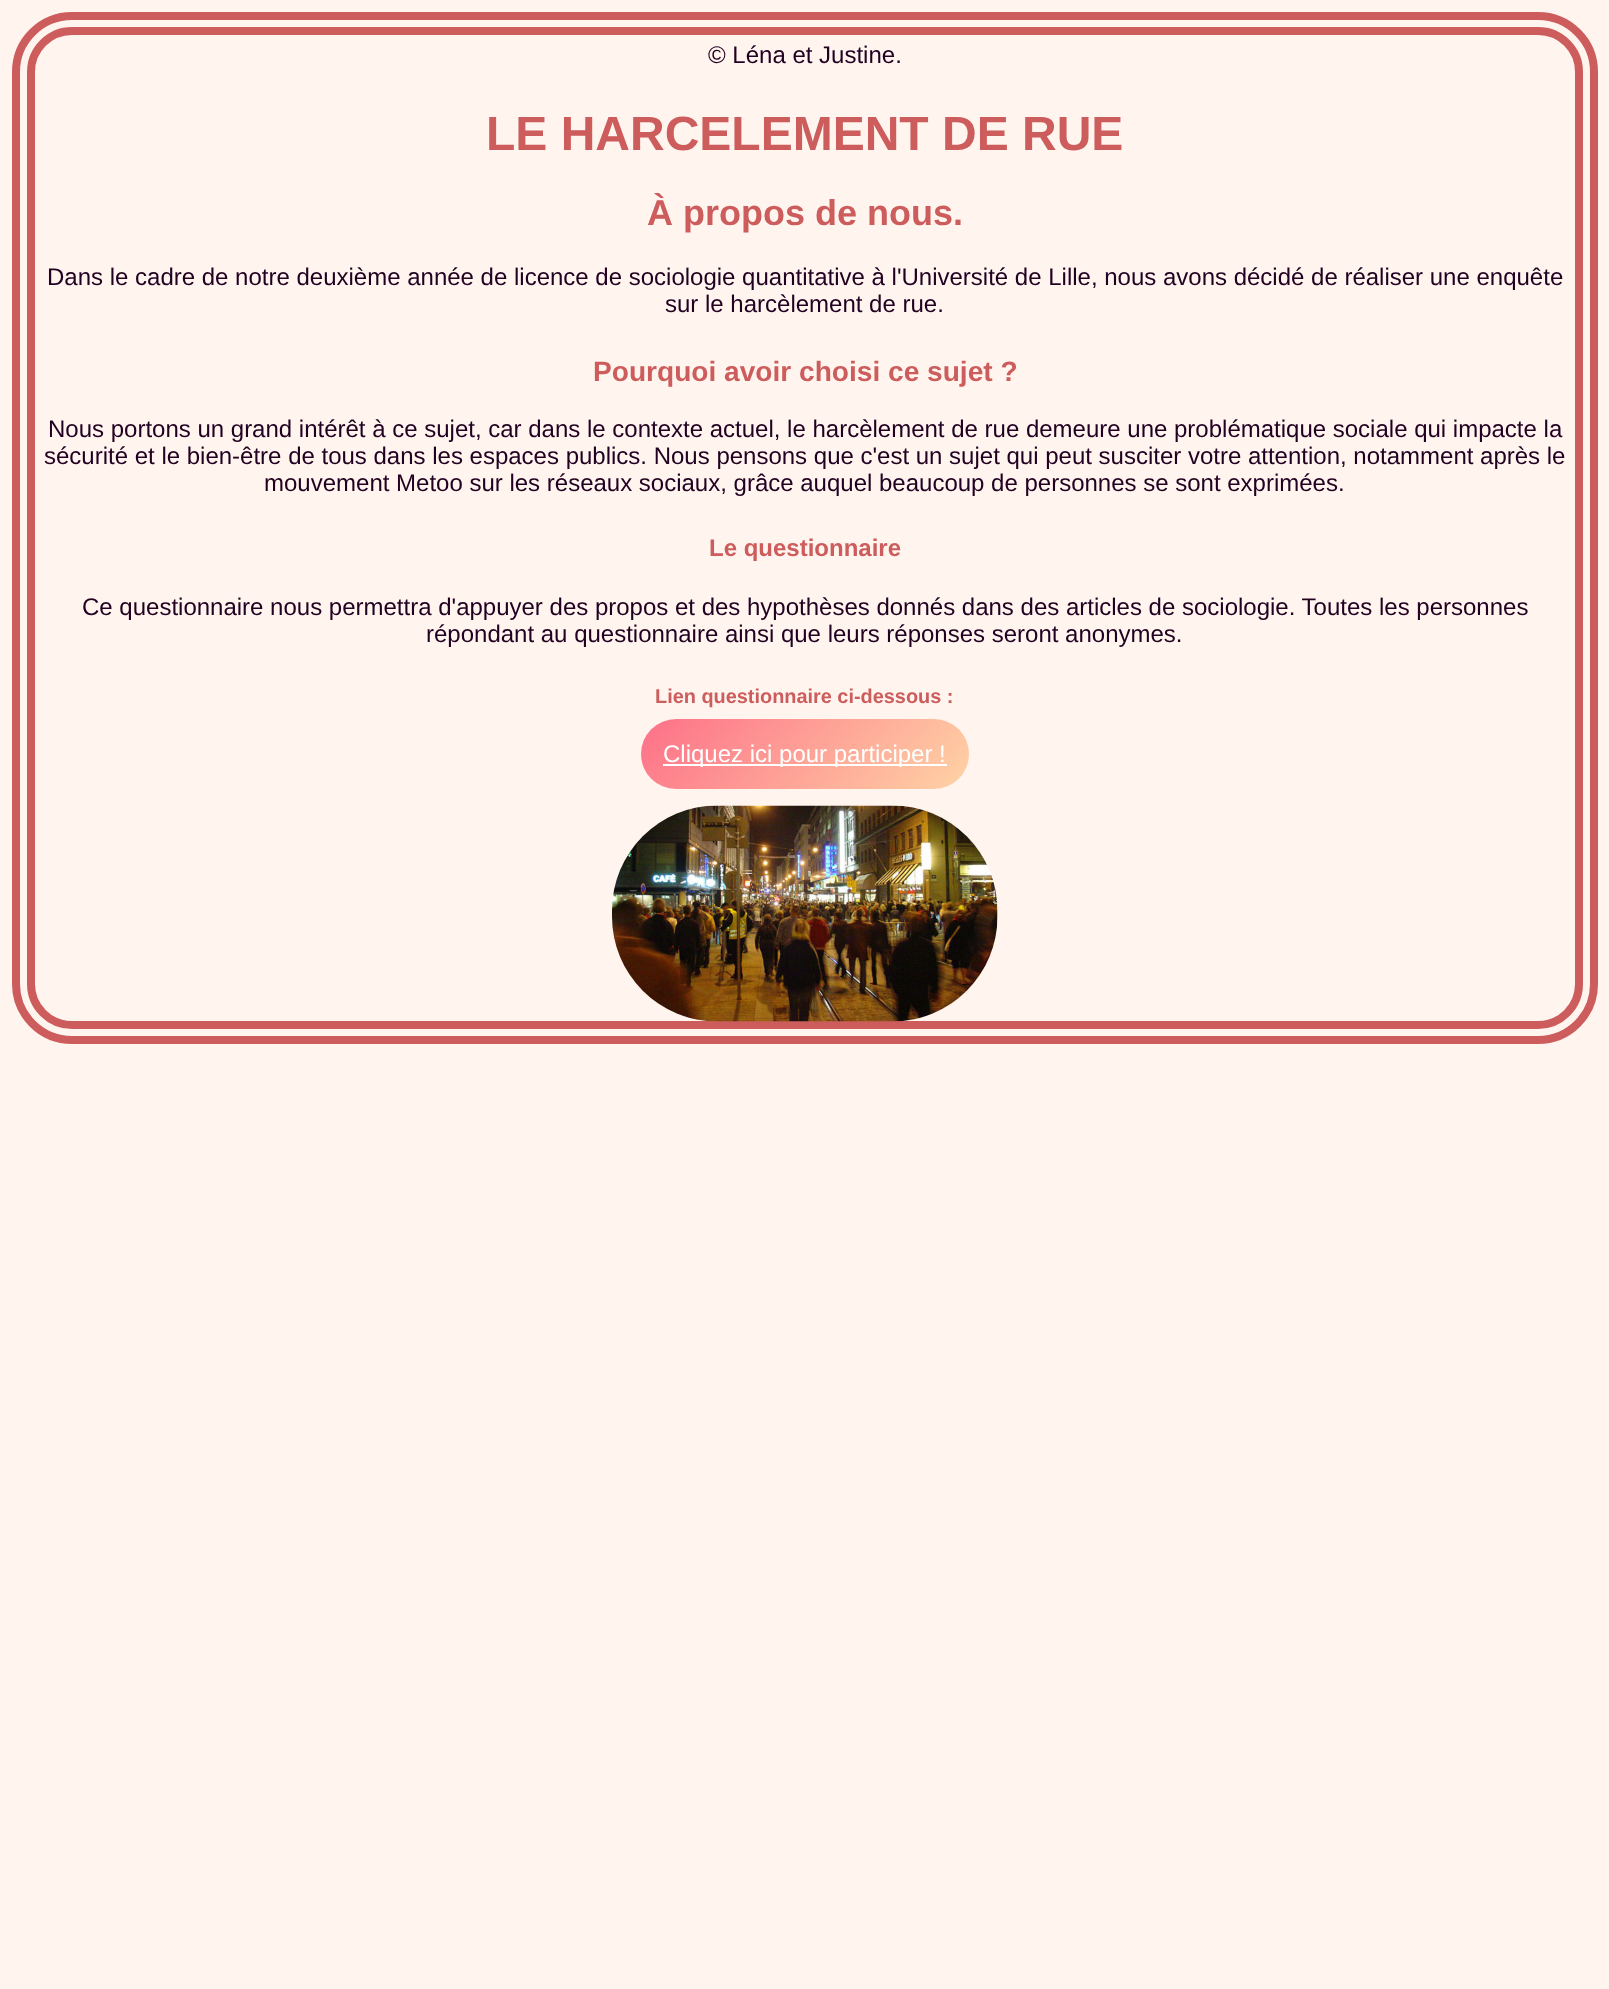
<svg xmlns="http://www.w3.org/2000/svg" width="1609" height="1989">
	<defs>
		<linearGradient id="g1" gradientUnits="userSpaceOnUse" x1="697" y1="656" x2="913" y2="851"><stop offset="0" stop-color="#FD7088" /><stop offset="1" stop-color="#FFD3A5" /></linearGradient>
	</defs>
	<rect width="100%" height="100%" fill="#FFF5EE" />
	<rect x="16" y="16" width="1578" height="1024" rx="56" fill="none" stroke="#CD5C5C" stroke-width="8" />
	<rect x="31" y="31" width="1548" height="994" rx="41" fill="none" stroke="#CD5C5C" stroke-width="8" />
	<text x="708" y="63" font-family="Liberation Sans" font-size="24" fill="#220022">© Léna et Justine.</text>
	<text x="486" y="150" font-family="Liberation Sans" font-size="48" font-weight="700" fill="#CD5C5C">LE HARCELEMENT DE RUE</text>
	<text x="647" y="225" font-family="Liberation Sans" font-size="36" font-weight="700" fill="#CD5C5C">À propos de nous.</text>
	<g font-family="Liberation Sans" font-size="24" fill="#220022">
		<text x="47" y="285">Dans le cadre de notre deuxième année de licence de sociologie quantitative à l'Université de Lille, nous avons décidé de réaliser une enquête</text>
		<text x="665" y="312">sur le harcèlement de rue.</text>
	</g>
	<text x="593" y="381" font-family="Liberation Sans" font-size="28.1" font-weight="700" fill="#CD5C5C">Pourquoi avoir choisi ce sujet ?</text>
	<g font-family="Liberation Sans" font-size="24" fill="#220022">
		<text x="48" y="437">Nous portons un grand intérêt à ce sujet, car dans le contexte actuel, le harcèlement de rue demeure une problématique sociale qui impacte la</text>
		<text x="44" y="464">sécurité et le bien-être de tous dans les espaces publics. Nous pensons que c'est un sujet qui peut susciter votre attention, notamment après le</text>
		<text x="264" y="491">mouvement Metoo sur les réseaux sociaux, grâce auquel beaucoup de personnes se sont exprimées.</text>
	</g>
	<text x="709" y="556" font-family="Liberation Sans" font-size="24" font-weight="700" fill="#CD5C5C">Le questionnaire</text>
	<g font-family="Liberation Sans" font-size="24" fill="#220022">
		<text x="82" y="615">Ce questionnaire nous permettra d'appuyer des propos et des hypothèses donnés dans des articles de sociologie. Toutes les personnes</text>
		<text x="426" y="642">répondant au questionnaire ainsi que leurs réponses seront anonymes.</text>
	</g>
	<text x="655" y="703" font-family="Liberation Sans" font-size="19.9" font-weight="700" fill="#CD5C5C">Lien questionnaire ci-dessous :</text>
	<rect x="641" y="719" width="328" height="70" rx="35" fill="url(#g1)" />
	<rect x="663" y="764" width="284" height="2" fill="#FFFFFF" />
	<text x="663" y="762" font-family="Liberation Sans" font-size="24" fill="#FFFFFF">Cliquez ici pour participer !</text>
	<image x="612" y="805" width="386" height="217" href="assets/img1.png" />
</svg>
